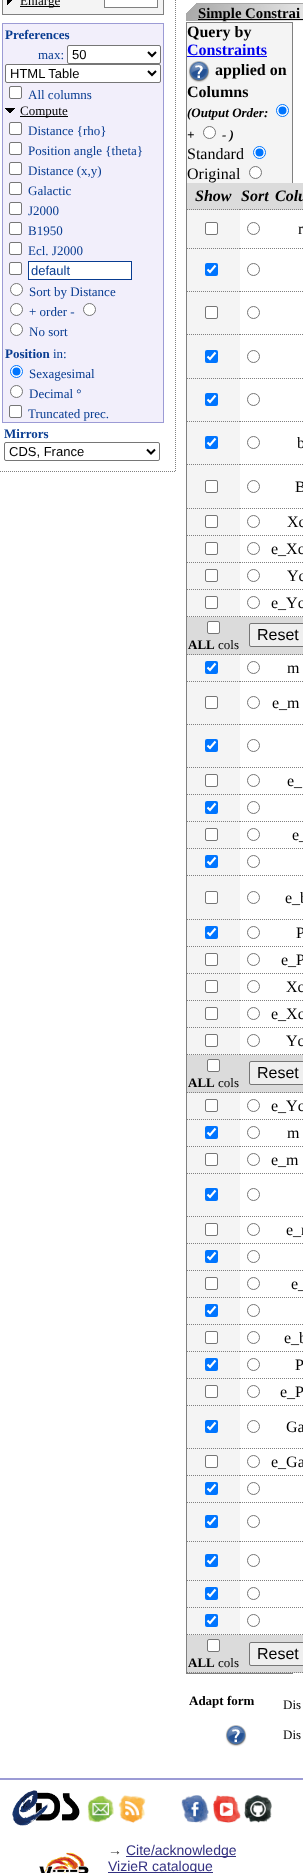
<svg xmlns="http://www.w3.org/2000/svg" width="303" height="1873">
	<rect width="100%" height="100%" fill="#FFFFFF" />
	<path d="M175.5-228V472" fill="none" stroke="#808080" stroke-dasharray="1 1" />
	<path d="M0 471.5H176" fill="none" stroke="#808080" stroke-dasharray="1 1" />
	<rect x="2.5" y="-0.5" width="161" height="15" fill="#F4F4F4" stroke="#808080" />
	<image x="7" y="0" width="5" height="5" href="assets/img1.png" />
	<rect x="20" y="6" width="40" height="1" fill="#000000" />
	<text x="20" y="5" font-family="Liberation Serif" font-size="13" fill="#000000">Enlarge</text>
	<rect x="104.5" y="-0.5" width="53" height="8" fill="#FFFFFF" stroke="#808080" />
	<rect x="2.5" y="23.5" width="161" height="399" fill="#F2EFFB" stroke="#9C9BD5" />
	<text x="5" y="39" font-family="Liberation Serif" font-size="13" font-weight="700" fill="#083C91">Preferences</text>
	<text x="38" y="59" font-family="Liberation Serif" font-size="13" fill="#083C91">max:</text>
	<rect x="67.5" y="45.5" width="93" height="18" rx="1.5" fill="#FFFFFF" stroke="#767676" />
	<path d="M148 52L152 56L156 52" fill="none" stroke="#000000" stroke-width="2" />
	<text x="72" y="59" font-family="Liberation Sans" font-size="13" fill="#000000">50</text>
	<rect x="5.5" y="64.5" width="155" height="18" rx="1.5" fill="#FFFFFF" stroke="#767676" />
	<path d="M148 71L152 75L156 71" fill="none" stroke="#000000" stroke-width="2" />
	<text x="10" y="78" font-family="Liberation Sans" font-size="13" fill="#000000">HTML Table</text>
	<rect x="9.5" y="86.5" width="12" height="12" rx="1.5" fill="#FFFFFF" stroke="#767676" />
	<text x="28" y="99" font-family="Liberation Serif" font-size="13" fill="#083C91">All columns</text>
	<image x="5" y="108" width="10" height="5" href="assets/img2.png" />
	<rect x="20" y="116" width="48" height="1" fill="#000000" />
	<text x="20" y="115" font-family="Liberation Serif" font-size="13" fill="#000000">Compute</text>
	<rect x="9.5" y="122.5" width="12" height="12" rx="1.5" fill="#FFFFFF" stroke="#767676" />
	<text x="28" y="135" font-family="Liberation Serif" font-size="13" fill="#083C91">Distance {rho}</text>
	<rect x="9.5" y="142.5" width="12" height="12" rx="1.5" fill="#FFFFFF" stroke="#767676" />
	<text x="28" y="155" font-family="Liberation Serif" font-size="13" fill="#083C91">Position angle {theta}</text>
	<rect x="9.5" y="162.5" width="12" height="12" rx="1.5" fill="#FFFFFF" stroke="#767676" />
	<text x="28" y="175" font-family="Liberation Serif" font-size="13" fill="#083C91">Distance (x,y)</text>
	<rect x="9.5" y="182.5" width="12" height="12" rx="1.5" fill="#FFFFFF" stroke="#767676" />
	<text x="28" y="195" font-family="Liberation Serif" font-size="13" fill="#083C91">Galactic</text>
	<rect x="9.5" y="202.5" width="12" height="12" rx="1.5" fill="#FFFFFF" stroke="#767676" />
	<text x="28" y="215" font-family="Liberation Serif" font-size="13" fill="#083C91">J2000</text>
	<rect x="9.5" y="222.5" width="12" height="12" rx="1.5" fill="#FFFFFF" stroke="#767676" />
	<text x="28" y="235" font-family="Liberation Serif" font-size="13" fill="#083C91">B1950</text>
	<rect x="9.5" y="242.5" width="12" height="12" rx="1.5" fill="#FFFFFF" stroke="#767676" />
	<text x="28" y="255" font-family="Liberation Serif" font-size="13" fill="#083C91">Ecl. J2000</text>
	<rect x="9.5" y="262.5" width="12" height="12" rx="1.5" fill="#FFFFFF" stroke="#767676" />
	<rect x="28.5" y="261.5" width="103" height="18" fill="#FFFFFF" stroke="#083C91" />
	<text x="31" y="275" font-family="Liberation Sans" font-size="13" fill="#083C91">default</text>
	<circle cx="16.5" cy="289.5" r="6" fill="#FFFFFF" stroke="#767676" />
	<text x="29" y="296" font-family="Liberation Serif" font-size="13" fill="#083C91">Sort by Distance</text>
	<circle cx="16.5" cy="309.5" r="6" fill="#FFFFFF" stroke="#767676" />
	<text x="29" y="316" font-family="Liberation Serif" font-size="13" fill="#083C91">+ order -</text>
	<circle cx="89.5" cy="309.5" r="6" fill="#FFFFFF" stroke="#767676" />
	<circle cx="16.5" cy="329.5" r="6" fill="#FFFFFF" stroke="#767676" />
	<text x="29" y="336" font-family="Liberation Serif" font-size="13" fill="#083C91">No sort</text>
	<text x="5" y="358" font-family="Liberation Serif" font-size="13" font-weight="700" fill="#083C91">Position</text>
	<text x="53" y="358" font-family="Liberation Serif" font-size="13" fill="#083C91">in:</text>
	<circle cx="16.5" cy="371.5" r="6" fill="#FFFFFF" stroke="#0075FF" />
	<circle cx="16.5" cy="371.5" r="4" fill="#0075FF" />
	<text x="29" y="378" font-family="Liberation Serif" font-size="13" fill="#083C91">Sexagesimal</text>
	<circle cx="16.5" cy="391.5" r="6" fill="#FFFFFF" stroke="#767676" />
	<text x="29" y="398" font-family="Liberation Serif" font-size="13" fill="#083C91">Decimal °</text>
	<rect x="9.5" y="405.5" width="12" height="12" rx="1.5" fill="#FFFFFF" stroke="#767676" />
	<text x="28" y="418" font-family="Liberation Serif" font-size="13" fill="#083C91">Truncated prec.</text>
	<text x="4" y="438" font-family="Liberation Serif" font-size="13" font-weight="700" fill="#083C91">Mirrors</text>
	<rect x="4.5" y="442.5" width="155" height="18" rx="1.5" fill="none" stroke="#767676" />
	<path d="M147 449.5L151 453.5L155 449.5" fill="none" stroke="#000000" stroke-width="2" />
	<text x="9" y="456" font-family="Liberation Sans" font-size="13" fill="#000000">CDS, France</text>
	<image x="186" y="3" width="117" height="18" href="assets/img3.png" />
	<rect x="198" y="19" width="105" height="1" fill="#000000" />
	<text x="198" y="18" font-family="Liberation Serif" font-size="14.75" font-weight="700" fill="#000000">Simple Constrai</text>
	<rect x="187" y="23" width="105" height="160" fill="#F4F4F4" />
	<rect x="186.5" y="22.5" width="106" height="1651" fill="none" stroke="#808080" />
	<text x="187" y="37" font-family="Liberation Serif" font-size="16" font-weight="700" fill="#000000">Query by</text>
	<text x="187" y="55" font-family="Liberation Serif" font-size="16" font-weight="700" fill="#0000EE">Constraints</text>
	<rect x="187" y="56" width="80" height="1" fill="#0000EE" />
	<image x="188" y="61" width="22" height="22" href="assets/img4.png" />
	<g font-family="Liberation Serif" font-size="16" font-weight="700" fill="#000000">
		<text x="215" y="75">applied on</text>
		<text x="187" y="97">Columns</text>
	</g>
	<text x="187" y="117" font-family="Liberation Serif" font-size="13" font-weight="700" font-style="italic" fill="#000000">(Output Order:</text>
	<circle cx="282.5" cy="110.5" r="6" fill="#FFFFFF" stroke="#0075FF" />
	<circle cx="282.5" cy="110.5" r="4" fill="#0075FF" />
	<text x="187" y="139" font-family="Liberation Serif" font-size="13" font-weight="700" font-style="italic" fill="#000000">+</text>
	<circle cx="209.5" cy="132.5" r="6" fill="#FFFFFF" stroke="#767676" />
	<text x="222" y="139" font-family="Liberation Serif" font-size="13" font-weight="700" font-style="italic" fill="#000000">- )</text>
	<text x="187" y="159" font-family="Liberation Serif" font-size="16" fill="#000000">Standard</text>
	<circle cx="259.5" cy="152.5" r="6" fill="#FFFFFF" stroke="#0075FF" />
	<circle cx="259.5" cy="152.5" r="4" fill="#0075FF" />
	<text x="187" y="179" font-family="Liberation Serif" font-size="16" fill="#000000">Original</text>
	<circle cx="255.5" cy="172.5" r="6" fill="#FFFFFF" stroke="#767676" />
	<rect x="292" y="210" width="1" height="1425" fill="#FFFFFF" />
	<rect x="187" y="183" width="116" height="27" fill="#DBDBDB" />
	<path d="M187 209.5H240" fill="none" stroke="#808080" stroke-dasharray="1 1" />
	<text x="195" y="201" font-family="Liberation Serif" font-size="16" font-weight="700" font-style="italic" fill="#000000">Show</text>
	<path d="M240 209.5H270M270 209.5H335" fill="none" stroke="#808080" stroke-dasharray="1 1" />
	<g font-family="Liberation Serif" font-size="16" font-weight="700" font-style="italic" fill="#000000">
		<text x="241" y="201">Sort</text>
		<text x="275" y="201">Colu</text>
	</g>
	<rect x="187" y="210" width="53" height="407" fill="#F4F4F4" />
	<path d="M187 248.5H240" fill="none" stroke="#808080" stroke-dasharray="1 1" />
	<rect x="205.5" y="222.5" width="12" height="12" rx="1.5" fill="#FFFFFF" stroke="#767676" />
	<path d="M240 248.5H270M270 248.5H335" fill="none" stroke="#808080" stroke-dasharray="1 1" />
	<circle cx="253.5" cy="228.5" r="6" fill="none" stroke="#767676" />
	<text x="298" y="234" font-family="Liberation Serif" font-size="16" fill="#000000">r</text>
	<path d="M187 291.5H240" fill="none" stroke="#808080" stroke-dasharray="1 1" />
	<rect x="205" y="263" width="13" height="13" rx="2" fill="#0075FF" />
	<path d="M207.5 269.5L210 272L215.5 265.5" fill="none" stroke="#FFFFFF" stroke-width="2.1" />
	<path d="M240 291.5H270M270 291.5H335" fill="none" stroke="#808080" stroke-dasharray="1 1" />
	<circle cx="253.5" cy="269.5" r="6" fill="none" stroke="#767676" />
	<path d="M187 334.5H240" fill="none" stroke="#808080" stroke-dasharray="1 1" />
	<rect x="205.5" y="306.5" width="12" height="12" rx="1.5" fill="#FFFFFF" stroke="#767676" />
	<path d="M240 334.5H270M270 334.5H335" fill="none" stroke="#808080" stroke-dasharray="1 1" />
	<circle cx="253.5" cy="312.5" r="6" fill="none" stroke="#767676" />
	<path d="M187 378.5H240" fill="none" stroke="#808080" stroke-dasharray="1 1" />
	<rect x="205" y="350" width="13" height="13" rx="2" fill="#0075FF" />
	<path d="M207.5 356.5L210 359L215.5 352.5" fill="none" stroke="#FFFFFF" stroke-width="2.1" />
	<path d="M240 378.5H270M270 378.5H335" fill="none" stroke="#808080" stroke-dasharray="1 1" />
	<circle cx="253.5" cy="356.5" r="6" fill="none" stroke="#767676" />
	<path d="M187 421.5H240" fill="none" stroke="#808080" stroke-dasharray="1 1" />
	<rect x="205" y="393" width="13" height="13" rx="2" fill="#0075FF" />
	<path d="M207.5 399.5L210 402L215.5 395.5" fill="none" stroke="#FFFFFF" stroke-width="2.1" />
	<path d="M240 421.5H270M270 421.5H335" fill="none" stroke="#808080" stroke-dasharray="1 1" />
	<circle cx="253.5" cy="399.5" r="6" fill="none" stroke="#767676" />
	<path d="M187 464.5H240" fill="none" stroke="#808080" stroke-dasharray="1 1" />
	<rect x="205" y="436" width="13" height="13" rx="2" fill="#0075FF" />
	<path d="M207.5 442.5L210 445L215.5 438.5" fill="none" stroke="#FFFFFF" stroke-width="2.1" />
	<path d="M240 464.5H270M270 464.5H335" fill="none" stroke="#808080" stroke-dasharray="1 1" />
	<circle cx="253.5" cy="442.5" r="6" fill="none" stroke="#767676" />
	<text x="297" y="448" font-family="Liberation Serif" font-size="16" fill="#000000">b</text>
	<path d="M187 508.5H240" fill="none" stroke="#808080" stroke-dasharray="1 1" />
	<rect x="205.5" y="480.5" width="12" height="12" rx="1.5" fill="#FFFFFF" stroke="#767676" />
	<path d="M240 508.5H270M270 508.5H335" fill="none" stroke="#808080" stroke-dasharray="1 1" />
	<circle cx="253.5" cy="486.5" r="6" fill="none" stroke="#767676" />
	<text x="295" y="492" font-family="Liberation Serif" font-size="16" fill="#000000">B</text>
	<path d="M187 535.5H240" fill="none" stroke="#808080" stroke-dasharray="1 1" />
	<rect x="205.5" y="515.5" width="12" height="12" rx="1.5" fill="#FFFFFF" stroke="#767676" />
	<path d="M240 535.5H270M270 535.5H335" fill="none" stroke="#808080" stroke-dasharray="1 1" />
	<circle cx="253.5" cy="521.5" r="6" fill="none" stroke="#767676" />
	<text x="287" y="527" font-family="Liberation Serif" font-size="16" fill="#000000">Xc</text>
	<path d="M187 562.5H240" fill="none" stroke="#808080" stroke-dasharray="1 1" />
	<rect x="205.5" y="542.5" width="12" height="12" rx="1.5" fill="#FFFFFF" stroke="#767676" />
	<path d="M240 562.5H270M270 562.5H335" fill="none" stroke="#808080" stroke-dasharray="1 1" />
	<circle cx="253.5" cy="548.5" r="6" fill="none" stroke="#767676" />
	<text x="271" y="554" font-family="Liberation Serif" font-size="16" fill="#000000">e_Xc</text>
	<path d="M187 589.5H240" fill="none" stroke="#808080" stroke-dasharray="1 1" />
	<rect x="205.5" y="569.5" width="12" height="12" rx="1.5" fill="#FFFFFF" stroke="#767676" />
	<path d="M240 589.5H270M270 589.5H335" fill="none" stroke="#808080" stroke-dasharray="1 1" />
	<circle cx="253.5" cy="575.5" r="6" fill="none" stroke="#767676" />
	<text x="287" y="581" font-family="Liberation Serif" font-size="16" fill="#000000">Yc</text>
	<path d="M187 616.5H240" fill="none" stroke="#808080" stroke-dasharray="1 1" />
	<rect x="205.5" y="596.5" width="12" height="12" rx="1.5" fill="#FFFFFF" stroke="#767676" />
	<path d="M240 616.5H270M270 616.5H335" fill="none" stroke="#808080" stroke-dasharray="1 1" />
	<circle cx="253.5" cy="602.5" r="6" fill="none" stroke="#767676" />
	<text x="271" y="608" font-family="Liberation Serif" font-size="16" fill="#000000">e_Yc</text>
	<rect x="187" y="617" width="116" height="38" fill="#DBDBDB" />
	<path d="M240 654.5H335" fill="none" stroke="#808080" stroke-dasharray="1 1" />
	<rect x="249.5" y="623.5" width="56" height="23" rx="1.5" fill="#EFEFEF" stroke="#767676" />
	<text x="257" y="640" font-family="Liberation Sans" font-size="16" fill="#000000">Reset</text>
	<path d="M187 654.5H240" fill="none" stroke="#808080" stroke-dasharray="1 1" />
	<rect x="207.5" y="621.5" width="12" height="12" rx="1.5" fill="#FFFFFF" stroke="#767676" />
	<text x="188" y="649" font-family="Liberation Serif" font-size="13" font-weight="700" fill="#000000">ALL</text>
	<text x="218" y="649" font-family="Liberation Serif" font-size="13" fill="#000000">cols</text>
	<rect x="187" y="655" width="53" height="400" fill="#F4F4F4" />
	<path d="M187 681.5H240" fill="none" stroke="#808080" stroke-dasharray="1 1" />
	<rect x="205" y="661" width="13" height="13" rx="2" fill="#0075FF" />
	<path d="M207.5 667.5L210 670L215.5 663.5" fill="none" stroke="#FFFFFF" stroke-width="2.1" />
	<path d="M240 681.5H270M270 681.5H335" fill="none" stroke="#808080" stroke-dasharray="1 1" />
	<circle cx="253.5" cy="667.5" r="6" fill="none" stroke="#767676" />
	<text x="287" y="673" font-family="Liberation Serif" font-size="16" fill="#000000">m</text>
	<path d="M187 724.5H240" fill="none" stroke="#808080" stroke-dasharray="1 1" />
	<rect x="205.5" y="696.5" width="12" height="12" rx="1.5" fill="#FFFFFF" stroke="#767676" />
	<path d="M240 724.5H270M270 724.5H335" fill="none" stroke="#808080" stroke-dasharray="1 1" />
	<circle cx="253.5" cy="702.5" r="6" fill="none" stroke="#767676" />
	<text x="272" y="708" font-family="Liberation Serif" font-size="16" fill="#000000">e_m</text>
	<path d="M187 767.5H240" fill="none" stroke="#808080" stroke-dasharray="1 1" />
	<rect x="205" y="739" width="13" height="13" rx="2" fill="#0075FF" />
	<path d="M207.5 745.5L210 748L215.5 741.5" fill="none" stroke="#FFFFFF" stroke-width="2.1" />
	<path d="M240 767.5H270M270 767.5H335" fill="none" stroke="#808080" stroke-dasharray="1 1" />
	<circle cx="253.5" cy="745.5" r="6" fill="none" stroke="#767676" />
	<path d="M187 794.5H240" fill="none" stroke="#808080" stroke-dasharray="1 1" />
	<rect x="205.5" y="774.5" width="12" height="12" rx="1.5" fill="#FFFFFF" stroke="#767676" />
	<path d="M240 794.5H270M270 794.5H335" fill="none" stroke="#808080" stroke-dasharray="1 1" />
	<circle cx="253.5" cy="780.5" r="6" fill="none" stroke="#767676" />
	<text x="287" y="786" font-family="Liberation Serif" font-size="16" fill="#000000">e_</text>
	<path d="M187 821.5H240" fill="none" stroke="#808080" stroke-dasharray="1 1" />
	<rect x="205" y="801" width="13" height="13" rx="2" fill="#0075FF" />
	<path d="M207.5 807.5L210 810L215.5 803.5" fill="none" stroke="#FFFFFF" stroke-width="2.1" />
	<path d="M240 821.5H270M270 821.5H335" fill="none" stroke="#808080" stroke-dasharray="1 1" />
	<circle cx="253.5" cy="807.5" r="6" fill="none" stroke="#767676" />
	<path d="M187 848.5H240" fill="none" stroke="#808080" stroke-dasharray="1 1" />
	<rect x="205.5" y="828.5" width="12" height="12" rx="1.5" fill="#FFFFFF" stroke="#767676" />
	<path d="M240 848.5H270M270 848.5H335" fill="none" stroke="#808080" stroke-dasharray="1 1" />
	<circle cx="253.5" cy="834.5" r="6" fill="none" stroke="#767676" />
	<text x="292" y="840" font-family="Liberation Serif" font-size="16" fill="#000000">e_</text>
	<path d="M187 875.5H240" fill="none" stroke="#808080" stroke-dasharray="1 1" />
	<rect x="205" y="855" width="13" height="13" rx="2" fill="#0075FF" />
	<path d="M207.5 861.5L210 864L215.5 857.5" fill="none" stroke="#FFFFFF" stroke-width="2.1" />
	<path d="M240 875.5H270M270 875.5H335" fill="none" stroke="#808080" stroke-dasharray="1 1" />
	<circle cx="253.5" cy="861.5" r="6" fill="none" stroke="#767676" />
	<path d="M187 919.5H240" fill="none" stroke="#808080" stroke-dasharray="1 1" />
	<rect x="205.5" y="891.5" width="12" height="12" rx="1.5" fill="#FFFFFF" stroke="#767676" />
	<path d="M240 919.5H270M270 919.5H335" fill="none" stroke="#808080" stroke-dasharray="1 1" />
	<circle cx="253.5" cy="897.5" r="6" fill="none" stroke="#767676" />
	<text x="285" y="903" font-family="Liberation Serif" font-size="16" fill="#000000">e_b</text>
	<path d="M187 946.5H240" fill="none" stroke="#808080" stroke-dasharray="1 1" />
	<rect x="205" y="926" width="13" height="13" rx="2" fill="#0075FF" />
	<path d="M207.5 932.5L210 935L215.5 928.5" fill="none" stroke="#FFFFFF" stroke-width="2.1" />
	<path d="M240 946.5H270M270 946.5H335" fill="none" stroke="#808080" stroke-dasharray="1 1" />
	<circle cx="253.5" cy="932.5" r="6" fill="none" stroke="#767676" />
	<text x="296" y="938" font-family="Liberation Serif" font-size="16" fill="#000000">P</text>
	<path d="M187 973.5H240" fill="none" stroke="#808080" stroke-dasharray="1 1" />
	<rect x="205.5" y="953.5" width="12" height="12" rx="1.5" fill="#FFFFFF" stroke="#767676" />
	<path d="M240 973.5H270M270 973.5H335" fill="none" stroke="#808080" stroke-dasharray="1 1" />
	<circle cx="253.5" cy="959.5" r="6" fill="none" stroke="#767676" />
	<text x="281" y="965" font-family="Liberation Serif" font-size="16" fill="#000000">e_P</text>
	<path d="M187 1000.5H240" fill="none" stroke="#808080" stroke-dasharray="1 1" />
	<rect x="205.5" y="980.5" width="12" height="12" rx="1.5" fill="#FFFFFF" stroke="#767676" />
	<path d="M240 1000.5H270M270 1000.5H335" fill="none" stroke="#808080" stroke-dasharray="1 1" />
	<circle cx="253.5" cy="986.5" r="6" fill="none" stroke="#767676" />
	<text x="286" y="992" font-family="Liberation Serif" font-size="16" fill="#000000">Xc</text>
	<path d="M187 1027.5H240" fill="none" stroke="#808080" stroke-dasharray="1 1" />
	<rect x="205.5" y="1007.5" width="12" height="12" rx="1.5" fill="#FFFFFF" stroke="#767676" />
	<path d="M240 1027.5H270M270 1027.5H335" fill="none" stroke="#808080" stroke-dasharray="1 1" />
	<circle cx="253.5" cy="1013.5" r="6" fill="none" stroke="#767676" />
	<text x="271" y="1019" font-family="Liberation Serif" font-size="16" fill="#000000">e_Xc</text>
	<path d="M187 1054.5H240" fill="none" stroke="#808080" stroke-dasharray="1 1" />
	<rect x="205.5" y="1034.5" width="12" height="12" rx="1.5" fill="#FFFFFF" stroke="#767676" />
	<path d="M240 1054.5H270M270 1054.5H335" fill="none" stroke="#808080" stroke-dasharray="1 1" />
	<circle cx="253.5" cy="1040.5" r="6" fill="none" stroke="#767676" />
	<text x="286" y="1046" font-family="Liberation Serif" font-size="16" fill="#000000">Yc</text>
	<rect x="187" y="1055" width="116" height="38" fill="#DBDBDB" />
	<path d="M240 1092.5H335" fill="none" stroke="#808080" stroke-dasharray="1 1" />
	<rect x="249.5" y="1061.5" width="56" height="23" rx="1.5" fill="#EFEFEF" stroke="#767676" />
	<text x="257" y="1078" font-family="Liberation Sans" font-size="16" fill="#000000">Reset</text>
	<path d="M187 1092.5H240" fill="none" stroke="#808080" stroke-dasharray="1 1" />
	<rect x="207.5" y="1059.5" width="12" height="12" rx="1.5" fill="#FFFFFF" stroke="#767676" />
	<text x="188" y="1087" font-family="Liberation Serif" font-size="13" font-weight="700" fill="#000000">ALL</text>
	<text x="218" y="1087" font-family="Liberation Serif" font-size="13" fill="#000000">cols</text>
	<rect x="187" y="1093" width="53" height="542" fill="#F4F4F4" />
	<path d="M187 1119.5H240" fill="none" stroke="#808080" stroke-dasharray="1 1" />
	<rect x="205.5" y="1099.5" width="12" height="12" rx="1.5" fill="#FFFFFF" stroke="#767676" />
	<path d="M240 1119.5H270M270 1119.5H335" fill="none" stroke="#808080" stroke-dasharray="1 1" />
	<circle cx="253.5" cy="1105.5" r="6" fill="none" stroke="#767676" />
	<text x="271" y="1111" font-family="Liberation Serif" font-size="16" fill="#000000">e_Yc</text>
	<path d="M187 1146.5H240" fill="none" stroke="#808080" stroke-dasharray="1 1" />
	<rect x="205" y="1126" width="13" height="13" rx="2" fill="#0075FF" />
	<path d="M207.5 1132.5L210 1135L215.5 1128.5" fill="none" stroke="#FFFFFF" stroke-width="2.1" />
	<path d="M240 1146.5H270M270 1146.5H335" fill="none" stroke="#808080" stroke-dasharray="1 1" />
	<circle cx="253.5" cy="1132.5" r="6" fill="none" stroke="#767676" />
	<text x="287" y="1138" font-family="Liberation Serif" font-size="16" fill="#000000">m</text>
	<path d="M187 1173.5H240" fill="none" stroke="#808080" stroke-dasharray="1 1" />
	<rect x="205.5" y="1153.5" width="12" height="12" rx="1.5" fill="#FFFFFF" stroke="#767676" />
	<path d="M240 1173.5H270M270 1173.5H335" fill="none" stroke="#808080" stroke-dasharray="1 1" />
	<circle cx="253.5" cy="1159.5" r="6" fill="none" stroke="#767676" />
	<text x="271" y="1165" font-family="Liberation Serif" font-size="16" fill="#000000">e_m</text>
	<path d="M187 1216.5H240" fill="none" stroke="#808080" stroke-dasharray="1 1" />
	<rect x="205" y="1188" width="13" height="13" rx="2" fill="#0075FF" />
	<path d="M207.5 1194.5L210 1197L215.5 1190.5" fill="none" stroke="#FFFFFF" stroke-width="2.1" />
	<path d="M240 1216.5H270M270 1216.5H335" fill="none" stroke="#808080" stroke-dasharray="1 1" />
	<circle cx="253.5" cy="1194.5" r="6" fill="none" stroke="#767676" />
	<path d="M187 1243.5H240" fill="none" stroke="#808080" stroke-dasharray="1 1" />
	<rect x="205.5" y="1223.5" width="12" height="12" rx="1.5" fill="#FFFFFF" stroke="#767676" />
	<path d="M240 1243.5H270M270 1243.5H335" fill="none" stroke="#808080" stroke-dasharray="1 1" />
	<circle cx="253.5" cy="1229.5" r="6" fill="none" stroke="#767676" />
	<text x="286" y="1235" font-family="Liberation Serif" font-size="16" fill="#000000">e_r</text>
	<path d="M187 1270.5H240" fill="none" stroke="#808080" stroke-dasharray="1 1" />
	<rect x="205" y="1250" width="13" height="13" rx="2" fill="#0075FF" />
	<path d="M207.5 1256.5L210 1259L215.5 1252.5" fill="none" stroke="#FFFFFF" stroke-width="2.1" />
	<path d="M240 1270.5H270M270 1270.5H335" fill="none" stroke="#808080" stroke-dasharray="1 1" />
	<circle cx="253.5" cy="1256.5" r="6" fill="none" stroke="#767676" />
	<path d="M187 1297.5H240" fill="none" stroke="#808080" stroke-dasharray="1 1" />
	<rect x="205.5" y="1277.5" width="12" height="12" rx="1.5" fill="#FFFFFF" stroke="#767676" />
	<path d="M240 1297.5H270M270 1297.5H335" fill="none" stroke="#808080" stroke-dasharray="1 1" />
	<circle cx="253.5" cy="1283.5" r="6" fill="none" stroke="#767676" />
	<text x="291" y="1289" font-family="Liberation Serif" font-size="16" fill="#000000">e_</text>
	<path d="M187 1324.5H240" fill="none" stroke="#808080" stroke-dasharray="1 1" />
	<rect x="205" y="1304" width="13" height="13" rx="2" fill="#0075FF" />
	<path d="M207.5 1310.5L210 1313L215.5 1306.5" fill="none" stroke="#FFFFFF" stroke-width="2.1" />
	<path d="M240 1324.5H270M270 1324.5H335" fill="none" stroke="#808080" stroke-dasharray="1 1" />
	<circle cx="253.5" cy="1310.5" r="6" fill="none" stroke="#767676" />
	<path d="M187 1351.5H240" fill="none" stroke="#808080" stroke-dasharray="1 1" />
	<rect x="205.5" y="1331.5" width="12" height="12" rx="1.5" fill="#FFFFFF" stroke="#767676" />
	<path d="M240 1351.5H270M270 1351.5H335" fill="none" stroke="#808080" stroke-dasharray="1 1" />
	<circle cx="253.5" cy="1337.5" r="6" fill="none" stroke="#767676" />
	<text x="284" y="1343" font-family="Liberation Serif" font-size="16" fill="#000000">e_b</text>
	<path d="M187 1378.5H240" fill="none" stroke="#808080" stroke-dasharray="1 1" />
	<rect x="205" y="1358" width="13" height="13" rx="2" fill="#0075FF" />
	<path d="M207.5 1364.5L210 1367L215.5 1360.5" fill="none" stroke="#FFFFFF" stroke-width="2.1" />
	<path d="M240 1378.5H270M270 1378.5H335" fill="none" stroke="#808080" stroke-dasharray="1 1" />
	<circle cx="253.5" cy="1364.5" r="6" fill="none" stroke="#767676" />
	<text x="295" y="1370" font-family="Liberation Serif" font-size="16" fill="#000000">P</text>
	<path d="M187 1405.5H240" fill="none" stroke="#808080" stroke-dasharray="1 1" />
	<rect x="205.5" y="1385.5" width="12" height="12" rx="1.5" fill="#FFFFFF" stroke="#767676" />
	<path d="M240 1405.5H270M270 1405.5H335" fill="none" stroke="#808080" stroke-dasharray="1 1" />
	<circle cx="253.5" cy="1391.5" r="6" fill="none" stroke="#767676" />
	<text x="280" y="1397" font-family="Liberation Serif" font-size="16" fill="#000000">e_P</text>
	<path d="M187 1448.5H240" fill="none" stroke="#808080" stroke-dasharray="1 1" />
	<rect x="205" y="1420" width="13" height="13" rx="2" fill="#0075FF" />
	<path d="M207.5 1426.5L210 1429L215.5 1422.5" fill="none" stroke="#FFFFFF" stroke-width="2.1" />
	<path d="M240 1448.5H270M270 1448.5H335" fill="none" stroke="#808080" stroke-dasharray="1 1" />
	<circle cx="253.5" cy="1426.5" r="6" fill="none" stroke="#767676" />
	<text x="286" y="1432" font-family="Liberation Serif" font-size="16" fill="#000000">Ga</text>
	<path d="M187 1475.5H240" fill="none" stroke="#808080" stroke-dasharray="1 1" />
	<rect x="205.5" y="1455.5" width="12" height="12" rx="1.5" fill="#FFFFFF" stroke="#767676" />
	<path d="M240 1475.5H270M270 1475.5H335" fill="none" stroke="#808080" stroke-dasharray="1 1" />
	<circle cx="253.5" cy="1461.5" r="6" fill="none" stroke="#767676" />
	<text x="271" y="1467" font-family="Liberation Serif" font-size="16" fill="#000000">e_Ga</text>
	<path d="M187 1502.5H240" fill="none" stroke="#808080" stroke-dasharray="1 1" />
	<rect x="205" y="1482" width="13" height="13" rx="2" fill="#0075FF" />
	<path d="M207.5 1488.5L210 1491L215.5 1484.5" fill="none" stroke="#FFFFFF" stroke-width="2.1" />
	<path d="M240 1502.5H270M270 1502.5H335" fill="none" stroke="#808080" stroke-dasharray="1 1" />
	<circle cx="253.5" cy="1488.5" r="6" fill="none" stroke="#767676" />
	<path d="M187 1541.5H240" fill="none" stroke="#808080" stroke-dasharray="1 1" />
	<rect x="205" y="1515" width="13" height="13" rx="2" fill="#0075FF" />
	<path d="M207.5 1521.5L210 1524L215.5 1517.5" fill="none" stroke="#FFFFFF" stroke-width="2.1" />
	<path d="M240 1541.5H270M270 1541.5H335" fill="none" stroke="#808080" stroke-dasharray="1 1" />
	<circle cx="253.5" cy="1521.5" r="6" fill="none" stroke="#767676" />
	<path d="M187 1580.5H240" fill="none" stroke="#808080" stroke-dasharray="1 1" />
	<rect x="205" y="1554" width="13" height="13" rx="2" fill="#0075FF" />
	<path d="M207.5 1560.5L210 1563L215.5 1556.5" fill="none" stroke="#FFFFFF" stroke-width="2.1" />
	<path d="M240 1580.5H270M270 1580.5H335" fill="none" stroke="#808080" stroke-dasharray="1 1" />
	<circle cx="253.5" cy="1560.5" r="6" fill="none" stroke="#767676" />
	<path d="M187 1607.5H240" fill="none" stroke="#808080" stroke-dasharray="1 1" />
	<rect x="205" y="1587" width="13" height="13" rx="2" fill="#0075FF" />
	<path d="M207.5 1593.5L210 1596L215.5 1589.5" fill="none" stroke="#FFFFFF" stroke-width="2.1" />
	<path d="M240 1607.5H270M270 1607.5H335" fill="none" stroke="#808080" stroke-dasharray="1 1" />
	<circle cx="253.5" cy="1593.5" r="6" fill="none" stroke="#767676" />
	<path d="M187 1634.5H240" fill="none" stroke="#808080" stroke-dasharray="1 1" />
	<rect x="205" y="1614" width="13" height="13" rx="2" fill="#0075FF" />
	<path d="M207.5 1620.5L210 1623L215.5 1616.5" fill="none" stroke="#FFFFFF" stroke-width="2.1" />
	<path d="M240 1634.5H270M270 1634.5H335" fill="none" stroke="#808080" stroke-dasharray="1 1" />
	<circle cx="253.5" cy="1620.5" r="6" fill="none" stroke="#767676" />
	<rect x="187" y="1635" width="116" height="38" fill="#DBDBDB" />
	<path d="M240 1672.5H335" fill="none" stroke="#808080" stroke-dasharray="1 1" />
	<rect x="249.5" y="1642.5" width="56" height="23" rx="1.5" fill="#EFEFEF" stroke="#767676" />
	<text x="257" y="1659" font-family="Liberation Sans" font-size="16" fill="#000000">Reset</text>
	<path d="M187 1672.5H240" fill="none" stroke="#808080" stroke-dasharray="1 1" />
	<rect x="207.5" y="1639.5" width="12" height="12" rx="1.5" fill="#FFFFFF" stroke="#767676" />
	<text x="188" y="1667" font-family="Liberation Serif" font-size="13" font-weight="700" fill="#000000">ALL</text>
	<text x="218" y="1667" font-family="Liberation Serif" font-size="13" fill="#000000">cols</text>
	<text x="189" y="1705" font-family="Liberation Serif" font-size="13" font-weight="700" fill="#000000">Adapt form</text>
	<text x="283" y="1709" font-family="Liberation Serif" font-size="13" fill="#000000">Dis</text>
	<image x="225" y="1725" width="22" height="22" href="assets/img5.png" />
	<text x="283" y="1739" font-family="Liberation Serif" font-size="13" fill="#000000">Dis</text>
	<rect x="0" y="1778" width="303" height="2" fill="#9C9BD5" />
	<image x="12" y="1790" width="68" height="36" href="assets/img6.png" />
	<image x="87" y="1795" width="27" height="28" href="assets/img7.png" />
	<image x="118" y="1795" width="28" height="28" href="assets/img8.png" />
	<image x="181" y="1795" width="28" height="28" href="assets/img9.png" />
	<image x="213" y="1795" width="28" height="28" href="assets/img10.png" />
	<image x="244" y="1795" width="28" height="28" href="assets/img11.png" />
	<image x="39" y="1852" width="50" height="21" href="assets/img12.png" />
	<text x="108" y="1855" font-family="Liberation Sans" font-size="14" fill="#333333">→</text>
	<rect x="126" y="1856" width="110" height="1" fill="#333181" />
	<text x="126" y="1855" font-family="Liberation Sans" font-size="14" fill="#333181">Cite/acknowledge</text>
	<rect x="108" y="1872" width="105" height="1" fill="#333181" />
	<text x="108" y="1871" font-family="Liberation Sans" font-size="14" fill="#333181">VizieR catalogue</text>
</svg>
